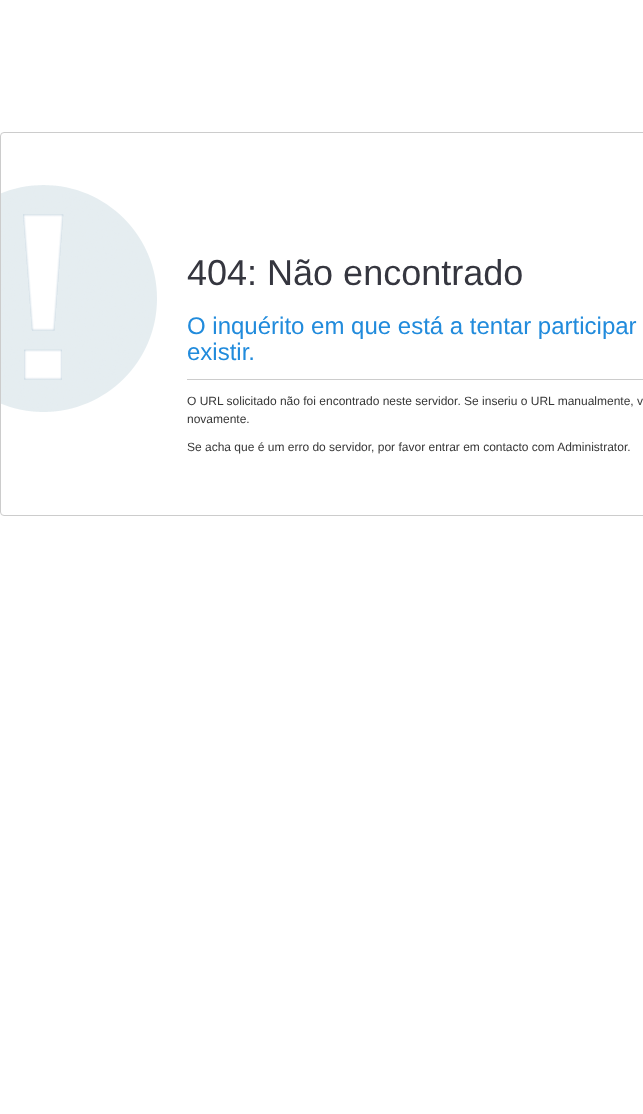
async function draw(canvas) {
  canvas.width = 643;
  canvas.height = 1114;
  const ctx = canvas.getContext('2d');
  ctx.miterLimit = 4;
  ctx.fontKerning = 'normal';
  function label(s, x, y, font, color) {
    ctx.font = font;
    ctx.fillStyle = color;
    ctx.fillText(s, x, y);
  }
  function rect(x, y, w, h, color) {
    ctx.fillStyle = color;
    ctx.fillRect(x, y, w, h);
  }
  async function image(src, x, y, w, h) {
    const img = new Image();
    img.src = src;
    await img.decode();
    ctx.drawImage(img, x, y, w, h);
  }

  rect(0, 0, 643, 1114, '#fff');
  await image('assets/img1.png', 1, 185, 156, 227);
  ctx.beginPath();
  ctx.roundRect(0.5, 132.5, 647, 383, 3.5);
  ctx.strokeStyle = '#ccc';
  ctx.stroke();
  label('404: Não encontrado', 187, 285, '36px Liberation Sans', '#35363f');
  rect(187, 379, 456, 1, '#ccc');
  label('O inquérito em que está a tentar participar', 187, 334, '24px Liberation Sans', '#218bdc');
  label('existir.', 187, 360, '24px Liberation Sans', '#218bdc');
  label('O URL solicitado não foi encontrado neste servidor. Se inseriu o URL manualmente, v', 187, 405, '12px Liberation Sans', '#373737');
  label('novamente.', 187, 423, '12px Liberation Sans', '#373737');
  label('Se acha que é um erro do servidor, por favor entrar em contacto com Administrator.', 187, 451, '12px Liberation Sans', '#373737');
}

draw(document.querySelector('canvas'));
